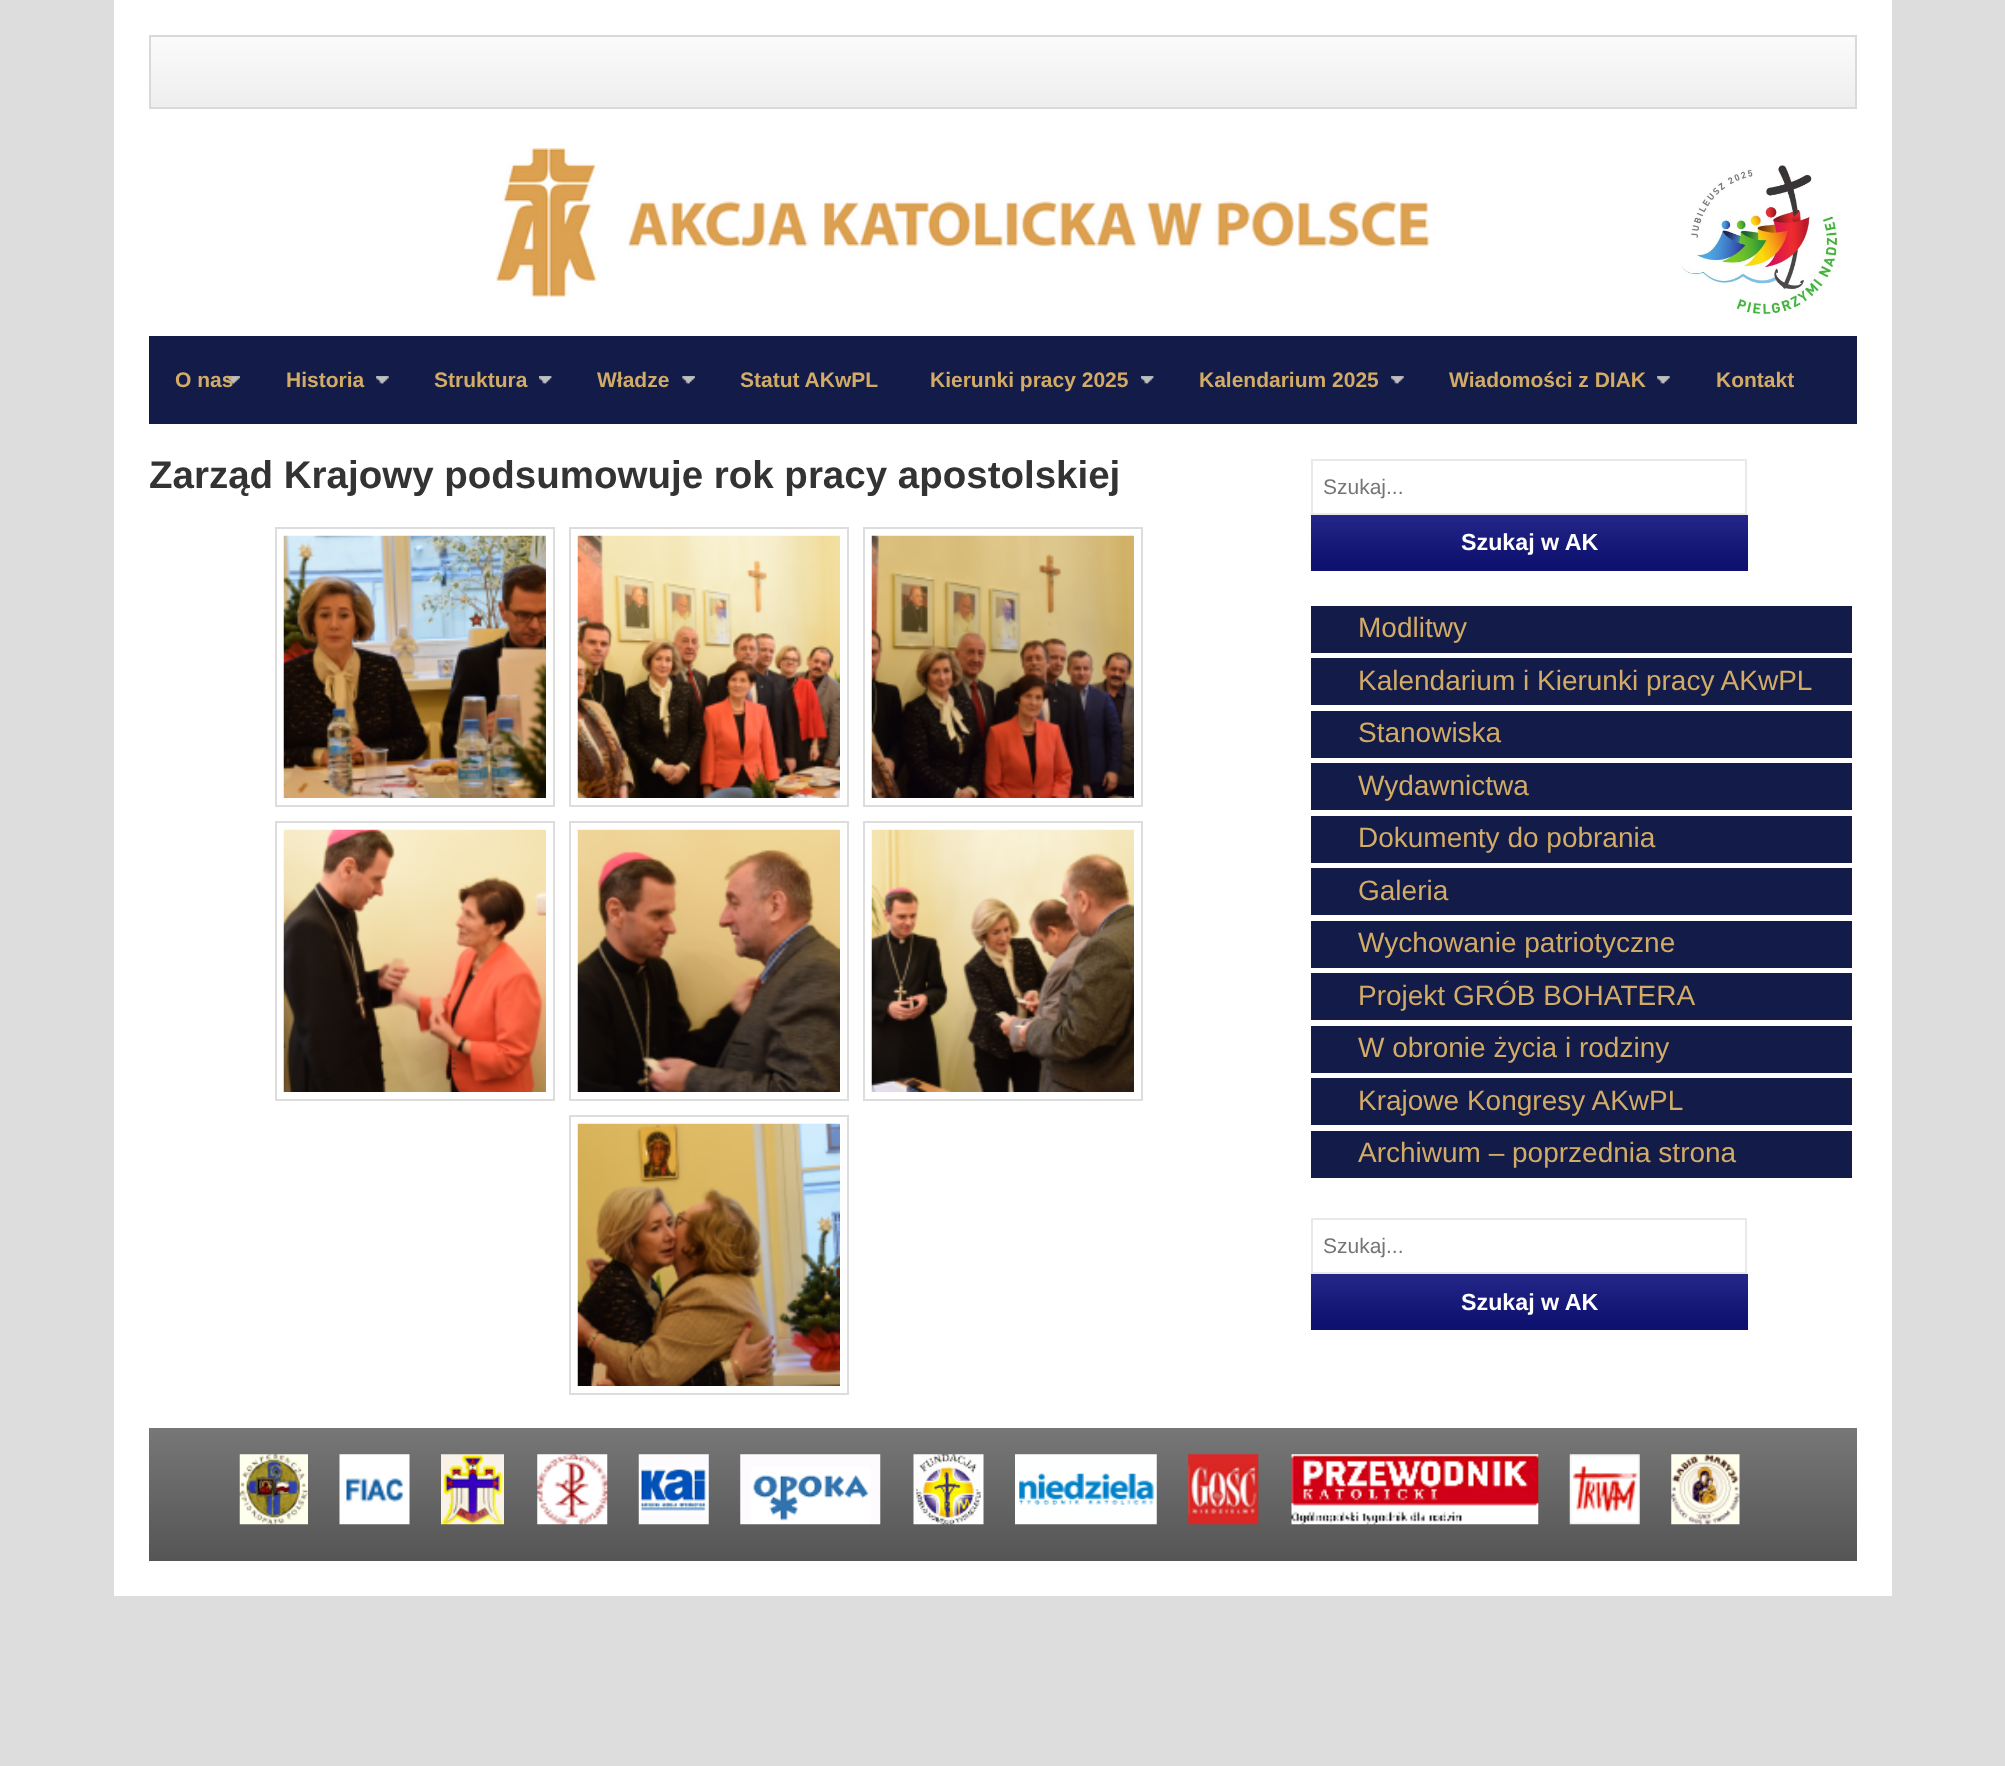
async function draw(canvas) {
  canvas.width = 2005;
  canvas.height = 1766;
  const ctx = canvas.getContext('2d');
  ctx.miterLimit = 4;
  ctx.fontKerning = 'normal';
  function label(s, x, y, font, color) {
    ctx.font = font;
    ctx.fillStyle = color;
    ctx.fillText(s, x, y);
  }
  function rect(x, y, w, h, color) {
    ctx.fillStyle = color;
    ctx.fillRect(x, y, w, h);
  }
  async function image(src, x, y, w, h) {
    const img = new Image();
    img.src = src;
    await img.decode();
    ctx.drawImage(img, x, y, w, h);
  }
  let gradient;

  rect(0, 0, 2005, 1766, '#ddd');
  rect(114, 0, 1778, 1596, '#fff');
  gradient = ctx.createLinearGradient(1003, 37, 1003, 107);
  gradient.addColorStop(0, '#fbfbfb');
  gradient.addColorStop(1, '#eee');
  ctx.fillStyle = gradient;
  ctx.fillRect(151, 37, 1704, 70);
  ctx.strokeStyle = '#d9d9d9';
  ctx.lineWidth = 2;
  ctx.strokeRect(150, 36, 1706, 72);
  await image('assets/img1.png', 496, 148, 934, 149);
  await image('assets/img2.png', 1681, 165, 157, 151);
  rect(149, 336, 1708, 88, '#131b48');
  await image('assets/img3.png', 227, 376, 13, 8);
  await image('assets/img4.png', 227, 376, 13, 8);
  label('O nas', 175, 387, 'bold 21px Liberation Sans', '#d2ab67');
  label('Historia', 286, 387, 'bold 21px Liberation Sans', '#d2ab67');
  await image('assets/img5.png', 376, 376, 13, 8);
  await image('assets/img6.png', 376, 376, 13, 8);
  label('Struktura', 434, 387, 'bold 21px Liberation Sans', '#d2ab67');
  await image('assets/img7.png', 539, 376, 13, 8);
  await image('assets/img8.png', 539, 376, 13, 8);
  label('Władze', 597, 387, 'bold 21px Liberation Sans', '#d2ab67');
  await image('assets/img3.png', 682, 376, 13, 8);
  await image('assets/img4.png', 682, 376, 13, 8);
  label('Statut AKwPL', 740, 387, 'bold 21px Liberation Sans', '#d2ab67');
  label('Kierunki pracy 2025', 930, 387, 'bold 21px Liberation Sans', '#d2ab67');
  await image('assets/img7.png', 1141, 376, 13, 8);
  await image('assets/img8.png', 1141, 376, 13, 8);
  label('Kalendarium 2025', 1199, 387, 'bold 21px Liberation Sans', '#d2ab67');
  await image('assets/img9.png', 1391, 376, 13, 8);
  await image('assets/img10.png', 1391, 376, 13, 8);
  label('Wiadomości z DIAK', 1449, 387, 'bold 21px Liberation Sans', '#d2ab67');
  await image('assets/img5.png', 1657, 376, 13, 8);
  await image('assets/img6.png', 1657, 376, 13, 8);
  label('Kontakt', 1716, 387, 'bold 21px Liberation Sans', '#d2ab67');
  label('Zarząd Krajowy podsumowuje rok pracy apostolskiej', 149, 488, 'bold 38.5px Liberation Sans', '#333');
  ctx.strokeStyle = '#ddd';
  ctx.strokeRect(276, 528, 278, 278);
  await image('assets/img11.png', 283, 535, 263, 263);
  ctx.strokeRect(570, 528, 278, 278);
  await image('assets/img12.png', 577, 535, 263, 263);
  ctx.strokeRect(864, 528, 278, 278);
  await image('assets/img13.png', 871, 535, 263, 263);
  ctx.strokeRect(276, 822, 278, 278);
  await image('assets/img14.png', 283, 829, 263, 263);
  ctx.strokeRect(570, 822, 278, 278);
  await image('assets/img15.png', 577, 829, 263, 263);
  ctx.strokeRect(864, 822, 278, 278);
  await image('assets/img16.png', 871, 829, 263, 263);
  ctx.strokeRect(570, 1116, 278, 278);
  await image('assets/img17.png', 577, 1123, 263, 263);
  ctx.strokeStyle = '#e9e9e9';
  ctx.strokeRect(1312, 460, 434, 54);
  label('Szukaj...', 1323, 494, '21px Liberation Sans', '#757575');
  rect(1311, 515, 437, 56, '#10127b');
  await image('assets/img18.png', 1310, 515, 439, 56);
  label('Szukaj w AK', 1461, 550, 'bold 23.25px Liberation Sans', '#fff');
  rect(1311, 606, 541, 47, '#131b48');
  label('Modlitwy', 1358, 637, '28px Liberation Sans', '#d2ab67');
  rect(1311, 658, 541, 47, '#131b48');
  label('Kalendarium i Kierunki pracy AKwPL', 1358, 690, '28px Liberation Sans', '#d2ab67');
  rect(1311, 711, 541, 47, '#131b48');
  label('Stanowiska', 1358, 742, '28px Liberation Sans', '#d2ab67');
  rect(1311, 763, 541, 47, '#131b48');
  label('Wydawnictwa', 1358, 795, '28px Liberation Sans', '#d2ab67');
  rect(1311, 816, 541, 47, '#131b48');
  label('Dokumenty do pobrania', 1358, 847, '28px Liberation Sans', '#d2ab67');
  rect(1311, 868, 541, 47, '#131b48');
  label('Galeria', 1358, 900, '28px Liberation Sans', '#d2ab67');
  rect(1311, 921, 541, 47, '#131b48');
  label('Wychowanie patriotyczne', 1358, 952, '28px Liberation Sans', '#d2ab67');
  rect(1311, 973, 541, 47, '#131b48');
  label('Projekt GRÓB BOHATERA', 1358, 1005, '28px Liberation Sans', '#d2ab67');
  rect(1311, 1026, 541, 47, '#131b48');
  label('W obronie życia i rodziny', 1358, 1057, '28px Liberation Sans', '#d2ab67');
  rect(1311, 1078, 541, 47, '#131b48');
  label('Krajowe Kongresy AKwPL', 1358, 1110, '28px Liberation Sans', '#d2ab67');
  rect(1311, 1131, 541, 47, '#131b48');
  label('Archiwum – poprzednia strona', 1358, 1162, '28px Liberation Sans', '#d2ab67');
  ctx.strokeRect(1312, 1219, 434, 54);
  label('Szukaj...', 1323, 1253, '21px Liberation Sans', '#757575');
  rect(1311, 1274, 437, 56, '#10127b');
  await image('assets/img19.png', 1310, 1274, 439, 56);
  label('Szukaj w AK', 1461, 1310, 'bold 23.25px Liberation Sans', '#fff');
  gradient = ctx.createLinearGradient(1003, 1428, 1003, 1561);
  gradient.addColorStop(0, '#777');
  gradient.addColorStop(1, '#555');
  ctx.fillStyle = gradient;
  ctx.fillRect(149, 1428, 1708, 133);
  await image('assets/img20.png', 239, 1454, 69, 71);
  await image('assets/img21.png', 339, 1454, 71, 71);
  await image('assets/img22.png', 441, 1454, 63, 71);
  await image('assets/img23.png', 537, 1454, 71, 71);
  await image('assets/img24.png', 638, 1454, 71, 71);
  await image('assets/img25.png', 740, 1454, 141, 71);
  await image('assets/img26.png', 913, 1454, 71, 71);
  await image('assets/img27.png', 1015, 1454, 142, 71);
  await image('assets/img28.png', 1188, 1454, 71, 71);
  await image('assets/img29.png', 1291, 1454, 248, 71);
  await image('assets/img30.png', 1569, 1454, 71, 71);
  await image('assets/img31.png', 1671, 1454, 69, 71);
}

draw(document.querySelector('canvas'));
